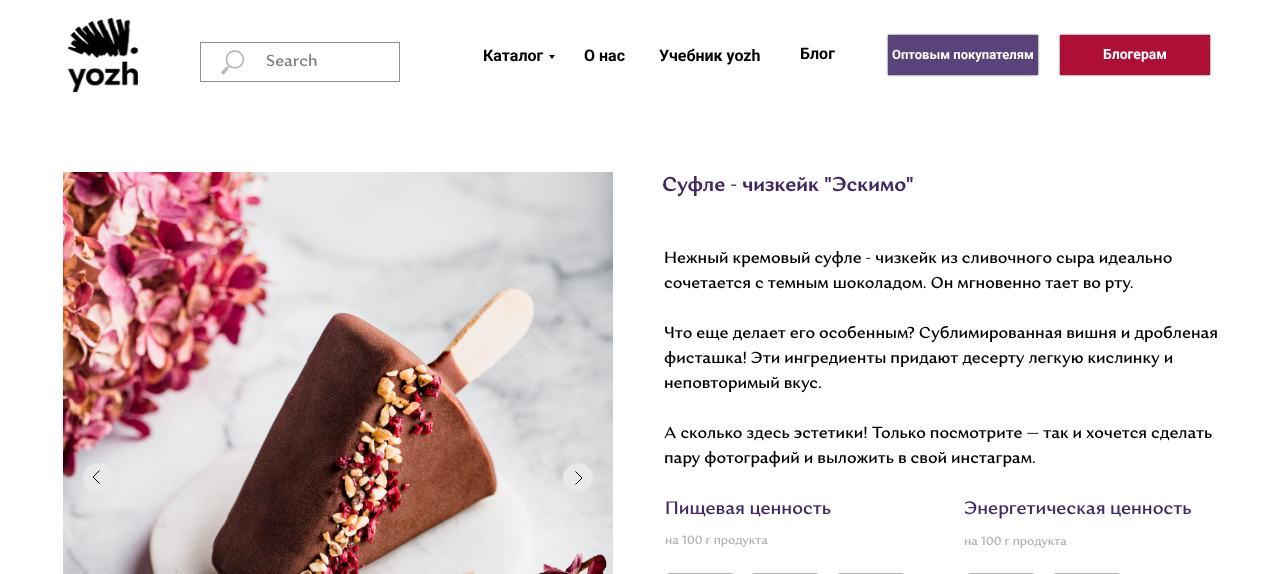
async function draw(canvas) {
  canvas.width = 1285;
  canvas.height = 574;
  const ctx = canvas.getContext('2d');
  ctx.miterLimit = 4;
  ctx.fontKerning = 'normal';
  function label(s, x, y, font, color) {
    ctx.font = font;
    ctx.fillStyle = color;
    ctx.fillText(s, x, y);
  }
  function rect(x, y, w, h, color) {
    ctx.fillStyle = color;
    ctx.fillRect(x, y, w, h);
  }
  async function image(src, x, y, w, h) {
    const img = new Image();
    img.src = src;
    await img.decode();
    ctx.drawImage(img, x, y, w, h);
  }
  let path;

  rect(0, 0, 1285, 574, '#fff');
  await image('assets/img1.png', 67, 18, 71, 74);
  ctx.strokeStyle = '#938f8f';
  ctx.strokeRect(200.5, 42.5, 199, 39);
  await image('assets/img2.png', 221, 50, 24, 25);
  label('Search', 266, 66, '500 16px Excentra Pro', '#808080');
  label('Каталог', 483, 61, 'bold 16px Roboto', '#000');
  path = new Path2D('M549 55H555L552 59Z');
  ctx.fill(path);
  label('О нас', 584, 61, 'bold 16px Roboto', '#000');
  label('Учебник yozh', 659, 61, 'bold 16px Roboto', '#000');
  label('Блог', 800, 59, 'bold 16px Roboto', '#000');
  ctx.fillStyle = '#000000b3';
  ctx.filter = 'blur(1px)';
  ctx.beginPath();
  ctx.rect(888, 35, 150, 40);
  ctx.fill();
  ctx.filter = 'none';
  rect(888, 35, 150, 40, '#5a4378');
  label('Оптовым покупателям', 892, 59, 'bold 13px Roboto', '#fff');
  ctx.fillStyle = '#000000b3';
  ctx.filter = 'blur(1px)';
  ctx.beginPath();
  ctx.rect(1060, 35, 150, 40);
  ctx.fill();
  ctx.filter = 'none';
  rect(1060, 35, 150, 40, '#ae0f36');
  label('Блогерам', 1103, 59, 'bold 14px Roboto', '#fff');
  await image('assets/img3.png', 63, 172, 550, 402);
  ctx.fillStyle = '#e8e8e8';
  ctx.beginPath();
  ctx.arc(98, 478, 15, 0, 2 * Math.PI);
  ctx.fill();
  path = new Path2D('M99.5 470.5L93 477L99.5 483.5');
  ctx.strokeStyle = '#000';
  ctx.stroke(path);
  ctx.beginPath();
  ctx.arc(578, 478, 15, 0, 2 * Math.PI);
  ctx.fill();
  path = new Path2D('M575.5 484.5L582 478L575.5 471.5');
  ctx.stroke(path);
  label('Суфле - чизкейк "Эскимо"', 662, 191, '600 20px Excentra Pro', '#422963');
  label('Нежный кремовый суфле - чизкейк из сливочного сыра идеально', 664, 263, '500 16px Excentra Pro', '#000');
  label('сочетается с темным шоколадом. Он мгновенно тает во рту.', 664, 288, '500 16px Excentra Pro', '#000');
  label('Что еще делает его особенным? Сублимированная вишня и дробленая', 664, 338, '500 16px Excentra Pro', '#000');
  label('фисташка! Эти ингредиенты придают десерту легкую кислинку и', 664, 363, '500 16px Excentra Pro', '#000');
  label('неповторимый вкус.', 664, 388, '500 16px Excentra Pro', '#000');
  label('А сколько здесь эстетики! Только посмотрите — так и хочется сделать', 664, 438, '500 16px Excentra Pro', '#000');
  label('пару фотографий и выложить в свой инстаграм.', 664, 463, '500 16px Excentra Pro', '#000');
  label('Пищевая ценность', 665, 514, '500 18px Excentra Pro', '#422963');
  label('Энергетическая ценность', 964, 514, '500 18px Excentra Pro', '#422963');
  label('на 100 г продукта', 665, 544, '500 12px Excentra Pro', '#b4b0b0');
  label('на 100 г продукта', 964, 545, '500 12px Excentra Pro', '#b4b0b0');
  ctx.beginPath();
  ctx.roundRect(664.5, 573.5, 72, 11, 9.5);
  ctx.strokeStyle = '#b4b0b0';
  ctx.stroke();
  ctx.beginPath();
  ctx.roundRect(749.5, 573.5, 72, 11, 9.5);
  ctx.stroke();
  ctx.beginPath();
  ctx.roundRect(834.5, 573.5, 72, 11, 9.5);
  ctx.stroke();
  ctx.beginPath();
  ctx.roundRect(965.5, 573.5, 72, 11, 9.5);
  ctx.stroke();
  ctx.beginPath();
  ctx.roundRect(1050.5, 573.5, 72, 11, 9.5);
  ctx.stroke();
}

draw(document.querySelector('canvas'));
